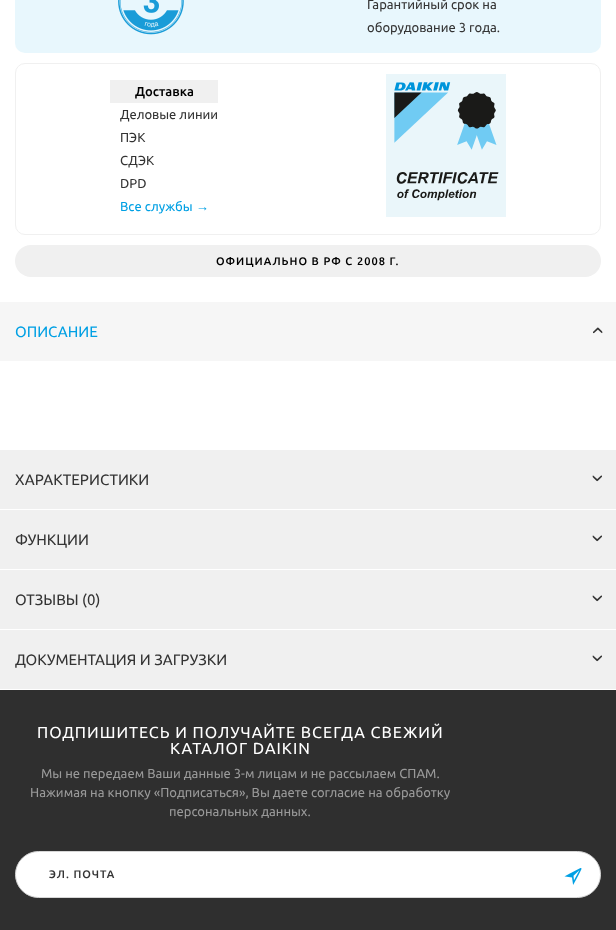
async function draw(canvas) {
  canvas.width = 616;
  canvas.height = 930;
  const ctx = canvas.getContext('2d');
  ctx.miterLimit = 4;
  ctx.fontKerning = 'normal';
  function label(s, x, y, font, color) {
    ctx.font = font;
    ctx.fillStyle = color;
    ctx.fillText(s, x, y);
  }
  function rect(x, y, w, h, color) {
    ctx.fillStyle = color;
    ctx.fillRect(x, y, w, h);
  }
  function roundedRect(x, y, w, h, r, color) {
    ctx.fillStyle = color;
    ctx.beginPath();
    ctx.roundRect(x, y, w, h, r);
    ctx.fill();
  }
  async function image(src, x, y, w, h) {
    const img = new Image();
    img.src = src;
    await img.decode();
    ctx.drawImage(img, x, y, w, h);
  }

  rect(0, 0, 616, 930, '#fff');
  roundedRect(15, -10, 586, 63, 10, '#e8f7fd');
  await image('assets/img1.png', 118, 0, 66, 35);
  label('Гарантийный срок на', 367, 9, '13px Ubuntu', '#343434');
  label('оборудование 3 года.', 367, 32, '13px Ubuntu', '#343434');
  ctx.beginPath();
  ctx.roundRect(15.5, 63.5, 585, 171, 9.5);
  ctx.strokeStyle = '#f0f0f0';
  ctx.stroke();
  rect(110, 80, 108, 23, '#f0f0f0');
  label('Доставка', 135, 96, '500 13px Ubuntu', '#000');
  label('Деловые линии', 120, 119, '13px Ubuntu', '#343434');
  label('ПЭК', 120, 142, '13px Ubuntu', '#343434');
  label('СДЭК', 120, 165, '13px Ubuntu', '#343434');
  label('DPD', 120, 188, '13px Ubuntu', '#343434');
  label('Все службы', 120, 211, '13px Ubuntu', '#00a0e4');
  label('→', 196, 211, '13px Liberation Sans', '#00a0e4');
  await image('assets/img2.png', 386, 74, 120, 143);
  roundedRect(15, 245, 586, 32, 16, '#f0f0f0');
  ctx.letterSpacing = '1px';
  label('ОФИЦИАЛЬНО В РФ С 2008 Г.', 216, 265, '500 11px Ubuntu', '#000');
  rect(0, 302, 616, 59, '#f6f6f6');
  ctx.letterSpacing = '0px';
  label('ОПИСАНИЕ', 15, 337, '15px Ubuntu', '#00a0e4');
  await image('assets/img3.png', 593, 327, 10, 7);
  rect(0, 450, 616, 59, '#f0f0f0');
  label('ХАРАКТЕРИСТИКИ', 15, 485, '15px Ubuntu', '#343434');
  await image('assets/img4.png', 592, 475, 10, 7);
  rect(0, 510, 616, 59, '#f0f0f0');
  label('ФУНКЦИИ', 15, 545, '15px Ubuntu', '#343434');
  await image('assets/img4.png', 592, 535, 10, 7);
  rect(0, 570, 616, 59, '#f0f0f0');
  label('ОТЗЫВЫ (0)', 15, 605, '15px Ubuntu', '#343434');
  await image('assets/img4.png', 592, 595, 10, 7);
  rect(0, 630, 616, 59, '#f0f0f0');
  label('ДОКУМЕНТАЦИЯ И ЗАГРУЗКИ', 15, 665, '15px Ubuntu', '#343434');
  await image('assets/img4.png', 592, 655, 10, 7);
  rect(0, 690, 616, 240, '#2f2f2f');
  ctx.letterSpacing = '1px';
  label('ПОДПИШИТЕСЬ И ПОЛУЧАЙТЕ ВСЕГДА СВЕЖИЙ', 37, 738, '16px Ubuntu', '#fff');
  label('КАТАЛОГ DAIKIN', 170, 754, '16px Ubuntu', '#fff');
  ctx.letterSpacing = '0px';
  label('Мы не передаем Ваши данные 3-м лицам и не рассылаем СПАМ.', 41, 778, '13px Ubuntu', '#999');
  label('Нажимая на кнопку «Подписаться», Вы даете согласие на обработку', 30, 797, '13px Ubuntu', '#999');
  label('персональных данных.', 169, 816, '13px Ubuntu', '#999');
  ctx.fillStyle = '#fff';
  ctx.beginPath();
  ctx.roundRect(15.5, 851.5, 585, 46, 23);
  ctx.fill();
  ctx.strokeStyle = '#d6d6d6';
  ctx.stroke();
  ctx.letterSpacing = '1px';
  label('ЭЛ. ПОЧТА', 49, 878, '500 11px Ubuntu', '#343434');
  await image('assets/img5.png', 564, 868, 18, 17);
}

draw(document.querySelector('canvas'));
